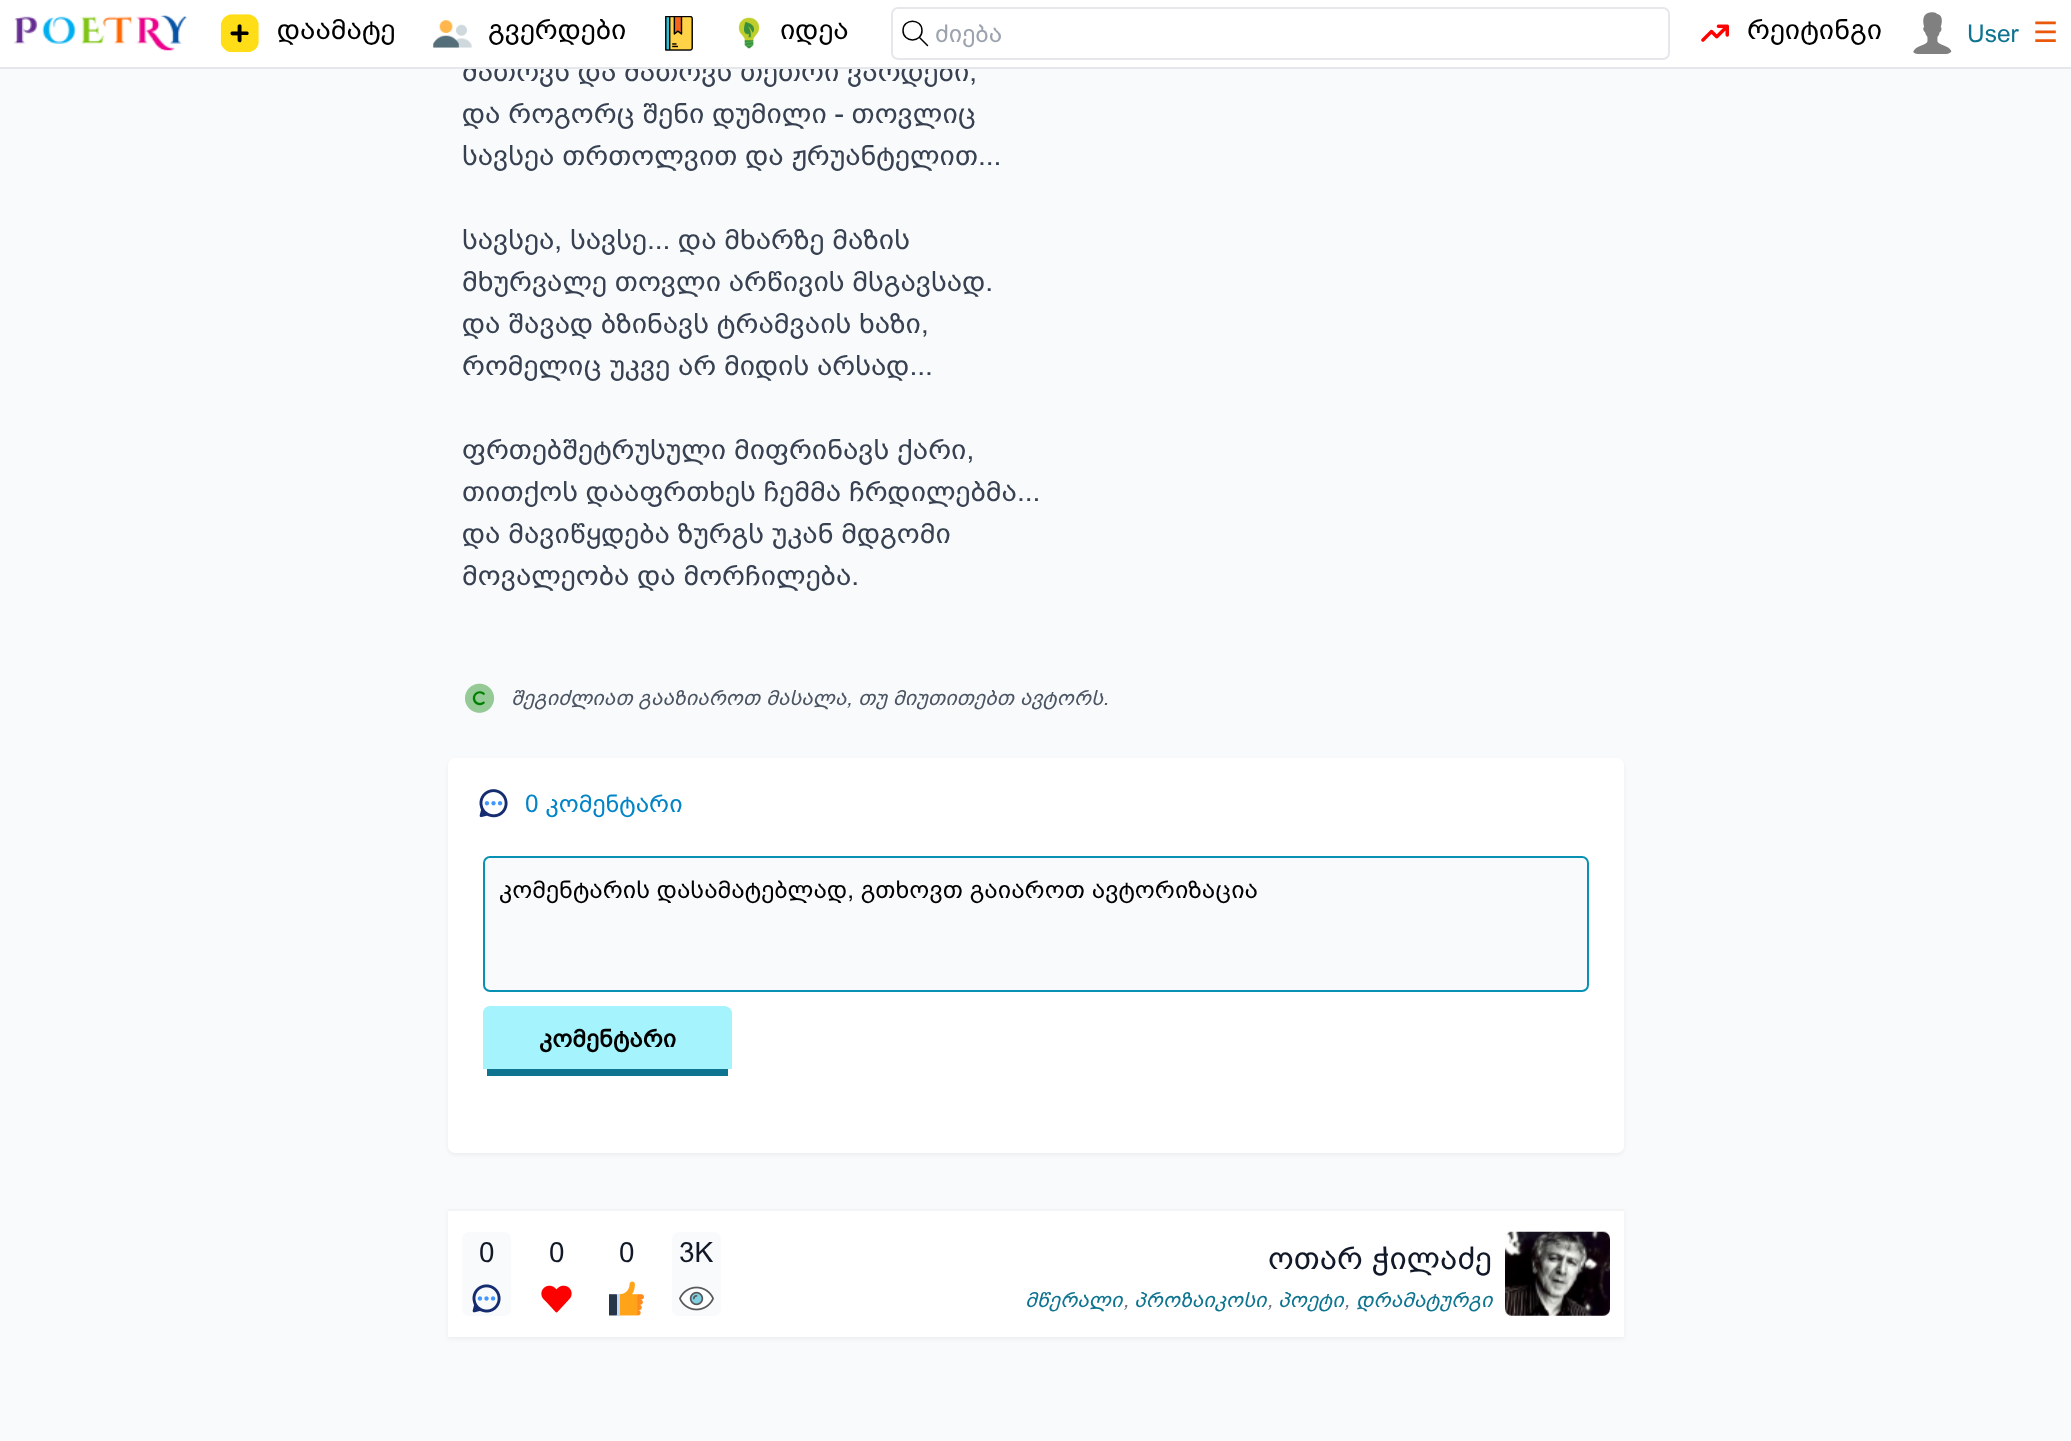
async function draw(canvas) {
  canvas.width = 2071;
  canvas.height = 1441;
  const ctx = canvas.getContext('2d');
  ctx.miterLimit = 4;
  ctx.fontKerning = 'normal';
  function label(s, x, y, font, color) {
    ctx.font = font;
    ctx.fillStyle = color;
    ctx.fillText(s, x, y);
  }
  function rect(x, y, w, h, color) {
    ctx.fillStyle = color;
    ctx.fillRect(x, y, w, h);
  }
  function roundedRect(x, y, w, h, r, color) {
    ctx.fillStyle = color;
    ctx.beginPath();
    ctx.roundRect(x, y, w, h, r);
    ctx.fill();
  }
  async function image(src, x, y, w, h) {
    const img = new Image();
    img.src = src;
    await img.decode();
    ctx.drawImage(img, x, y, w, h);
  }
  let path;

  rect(0, 0, 2071, 1441, '#f9fafb');
  label('მათოვს და მათოვს თეთრი ვარდები,', 462, 81, '28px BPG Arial', '#374151');
  rect(0, 0, 2071, 67, '#fff');
  rect(0, 67, 2071, 2, '#e5e7eb');
  await image('assets/img1.png', 14, 15, 173, 36);
  await image('assets/img2.png', 220, 14, 39, 39);
  label('დაამატე', 277, 39, '28px BPG Arial', '#000');
  await image('assets/img3.png', 433, 20, 39, 28);
  label('გვერდები', 488, 39, '28px BPG Arial', '#000');
  await image('assets/img4.png', 665, 16, 28, 35);
  await image('assets/img5.png', 738, 17, 22, 32);
  label('იდეა', 780, 39, '28px BPG Arial', '#000');
  ctx.beginPath();
  ctx.roundRect(892, 8, 777, 51, 6);
  ctx.strokeStyle = '#e5e7eb';
  ctx.lineWidth = 2;
  ctx.stroke();
  path = new Path2D('M922 30.5C922 43 903 43 903 30.5C903 18 922 18 922 30.5ZM919.5 37.5L927.5 45.5');
  ctx.strokeStyle = '#000';
  ctx.lineWidth = 1.5;
  ctx.lineCap = 'round';
  ctx.lineJoin = 'round';
  ctx.stroke(path);
  label('ძიება', 935, 42, '24.5px BPG Arial', '#9ca3af');
  await image('assets/img6.png', 1701, 24, 28, 18);
  label('რეიტინგი', 1747, 39, '28px BPG Arial', '#000');
  await image('assets/img7.png', 1913, 12, 39, 42);
  label('User', 1967, 42, '24.5px BPG Arial', '#0e7490');
  label('☰', 2033, 42, '28px DejaVu Sans', '#ea580c');
  label('და როგორც შენი დუმილი - თოვლიც', 462, 123, '28px BPG Arial', '#374151');
  label('სავსეა თრთოლვით და ჟრუანტელით...', 462, 165, '28px BPG Arial', '#374151');
  label('სავსეა, სავსე... და მხარზე მაზის', 462, 249, '28px BPG Arial', '#374151');
  label('მხურვალე თოვლი არწივის მსგავსად.', 462, 291, '28px BPG Arial', '#374151');
  label('და შავად ბზინავს ტრამვაის ხაზი,', 462, 333, '28px BPG Arial', '#374151');
  label('რომელიც უკვე არ მიდის არსად...', 462, 375, '28px BPG Arial', '#374151');
  label('ფრთებშეტრუსული მიფრინავს ქარი,', 462, 459, '28px BPG Arial', '#374151');
  label('თითქოს დააფრთხეს ჩემმა ჩრდილებმა...', 462, 501, '28px BPG Arial', '#374151');
  label('და მავიწყდება ზურგს უკან მდგომი', 462, 543, '28px BPG Arial', '#374151');
  label('მოვალეობა და მორჩილება.', 462, 585, '28px BPG Arial', '#374151');
  await image('assets/img8.png', 465, 683, 30, 30);
  label('შეგიძლიათ გააზიაროთ მასალა, თუ მიუთითებთ ავტორს.', 511, 705, 'italic 21px BPG Arial', '#4b5563');
  ctx.fillStyle = '#0000000d';
  ctx.filter = 'blur(2px)';
  ctx.beginPath();
  ctx.roundRect(448, 760, 1176, 395, 7);
  ctx.fill();
  ctx.filter = 'none';
  roundedRect(448, 758, 1176, 395, 7, '#fff');
  await image('assets/img9.png', 479, 789, 29, 29);
  label('0 კომენტარი', 525, 812, '24.5px BPG Arial', '#0284c7');
  ctx.fillStyle = '#f9fafb';
  ctx.beginPath();
  ctx.roundRect(484, 857, 1104, 134, 6);
  ctx.fill();
  ctx.strokeStyle = '#0891b2';
  ctx.lineWidth = 2;
  ctx.lineJoin = 'miter';
  ctx.stroke();
  label('კომენტარის დასამატებლად, გთხოვთ გაიაროთ ავტორიზაცია', 499, 898, '24.5px BPG Arial', '#000');
  ctx.fillStyle = '#a5f3fc';
  path = new Path2D('M490 1006H724C728 1006 732 1009 732 1013V1069H483V1013C483 1009 486 1006 490 1006Z');
  ctx.fill(path);
  rect(487, 1069, 241, 7, '#0e7490');
  label('კომენტარი', 539, 1047, 'bold 24.5px BPG Arial', '#000');
  ctx.fillStyle = '#0000000d';
  ctx.filter = 'blur(2px)';
  ctx.beginPath();
  ctx.rect(448, 1211, 1176, 128);
  ctx.fill();
  ctx.filter = 'none';
  rect(448, 1211, 1176, 126, '#fff');
  rect(448, 1209, 1176, 2, '#f3f4f6');
  roundedRect(462, 1232, 49, 84, 7, '#f9fafb');
  label('0', 479, 1262, '28px BPG Arial', '#111827');
  await image('assets/img10.png', 472, 1284, 29, 29);
  label('0', 549, 1262, '28px BPG Arial', '#111827');
  await image('assets/img11.png', 541, 1285, 31, 28);
  label('0', 619, 1262, '28px BPG Arial', '#111827');
  await image('assets/img12.png', 609, 1281, 35, 35);
  roundedRect(672, 1232, 49, 84, 7, '#f9fafb');
  label('3K', 679, 1262, '28px BPG Arial', '#111827');
  await image('assets/img13.png', 679, 1286, 35, 25);
  label('ოთარ ჭილაძე', 1268, 1269, '31.5px BPG Arial', '#111827');
  label('მწერალი', 1025, 1307, 'italic 21px BPG Arial', '#0e7490');
  label(',', 1123, 1307, 'italic 21px BPG Arial', '#6b7280');
  label('პროზაიკოსი', 1134, 1307, 'italic 21px BPG Arial', '#0e7490');
  label(',', 1267, 1307, 'italic 21px BPG Arial', '#6b7280');
  label('პოეტი', 1278, 1307, 'italic 21px BPG Arial', '#0e7490');
  label(',', 1344, 1307, 'italic 21px BPG Arial', '#6b7280');
  label('დრამატურგი', 1356, 1307, 'italic 21px BPG Arial', '#0e7490');
  await image('assets/img14.png', 1505, 1231, 105, 85);
}

draw(document.querySelector('canvas'));
